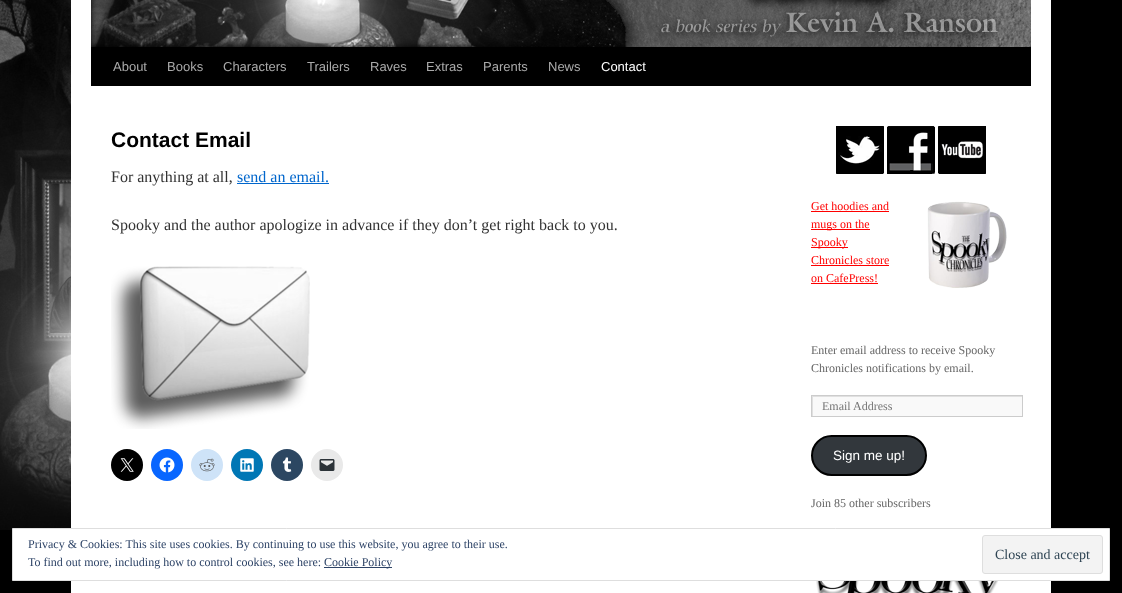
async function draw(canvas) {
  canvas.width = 1122;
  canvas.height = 593;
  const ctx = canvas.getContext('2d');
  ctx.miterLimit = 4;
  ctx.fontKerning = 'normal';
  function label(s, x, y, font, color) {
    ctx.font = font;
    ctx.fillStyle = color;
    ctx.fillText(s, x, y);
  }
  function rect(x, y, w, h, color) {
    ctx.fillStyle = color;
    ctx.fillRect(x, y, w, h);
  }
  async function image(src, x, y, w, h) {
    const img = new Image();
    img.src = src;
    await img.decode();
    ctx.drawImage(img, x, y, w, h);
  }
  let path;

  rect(0, 0, 1122, 593, '#000');
  await image('assets/img1.png', 0, 0, 71, 530);
  rect(71, 0, 980, 593, '#fff');
  rect(91, 47, 940, 39, '#000');
  await image('assets/img2.png', 91, 0, 940, 47);
  label('About', 113, 71, '13px Liberation Sans', '#aaa');
  label('Books', 167, 71, '13px Liberation Sans', '#aaa');
  label('Characters', 223, 71, '13px Liberation Sans', '#aaa');
  label('Trailers', 307, 71, '13px Liberation Sans', '#aaa');
  label('Raves', 370, 71, '13px Liberation Sans', '#aaa');
  label('Extras', 426, 71, '13px Liberation Sans', '#aaa');
  label('Parents', 483, 71, '13px Liberation Sans', '#aaa');
  label('News', 548, 71, '13px Liberation Sans', '#aaa');
  label('Contact', 601, 71, '13px Liberation Sans', '#fff');
  label('Contact Email', 111, 147, 'bold 21px Liberation Sans', '#000');
  label('For anything at all,', 111, 182, '16px Liberation Serif', '#333');
  label('send an email.', 237, 182, '16px Liberation Serif', '#06c');
  rect(237, 183, 92, 1, '#06c');
  label('Spooky and the author apologize in advance if they don’t get right back to you.', 111, 230, '16px Liberation Serif', '#333');
  await image('assets/img3.png', 111, 266, 199, 163);
  ctx.fillStyle = '#000';
  ctx.beginPath();
  ctx.arc(127, 465, 16, 0, 2 * Math.PI);
  ctx.fill();
  await image('assets/img4.png', 120, 458, 14, 14);
  ctx.fillStyle = '#0866ff';
  ctx.beginPath();
  ctx.arc(167, 465, 16, 0, 2 * Math.PI);
  ctx.fill();
  await image('assets/img5.png', 159, 457, 16, 16);
  ctx.fillStyle = '#cee3f8';
  ctx.beginPath();
  ctx.arc(207, 465, 16, 0, 2 * Math.PI);
  ctx.fill();
  await image('assets/img6.png', 199, 458, 16, 14);
  ctx.fillStyle = '#0077b5';
  ctx.beginPath();
  ctx.arc(247, 465, 16, 0, 2 * Math.PI);
  ctx.fill();
  await image('assets/img7.png', 240, 458, 14, 14);
  ctx.fillStyle = '#2c4762';
  ctx.beginPath();
  ctx.arc(287, 465, 16, 0, 2 * Math.PI);
  ctx.fill();
  await image('assets/img8.png', 282, 457, 10, 15);
  ctx.fillStyle = '#e9e9e9';
  ctx.beginPath();
  ctx.arc(327, 465, 16, 0, 2 * Math.PI);
  ctx.fill();
  await image('assets/img9.png', 319, 459, 16, 12);
  await image('assets/img10.png', 836, 126, 48, 48);
  await image('assets/img11.png', 887, 126, 48, 48);
  await image('assets/img12.png', 938, 126, 48, 48);
  label('Get hoodies and', 811, 210, '12px Liberation Serif', '#f00');
  rect(811, 211, 78, 1, '#f00');
  await image('assets/img13.png', 927, 201, 80, 87);
  rect(811, 229, 59, 1, '#f00');
  label('mugs on the', 811, 228, '12px Liberation Serif', '#f00');
  rect(811, 247, 37, 1, '#f00');
  label('Spooky', 811, 246, '12px Liberation Serif', '#f00');
  label('Chronicles store', 811, 264, '12px Liberation Serif', '#f00');
  rect(811, 265, 78, 1, '#f00');
  label('on CafePress!', 811, 282, '12px Liberation Serif', '#f00');
  rect(811, 283, 67, 1, '#f00');
  label('Enter email address to receive Spooky', 811, 354, '12px Liberation Serif', '#666');
  label('Chronicles notifications by email.', 811, 372, '12px Liberation Serif', '#666');
  rect(813, 397, 209, 19, '#f9f9f9');
  ctx.save();
  ctx.beginPath();
  ctx.rect(812, 396, 210, 20);
  ctx.clip();
  ctx.fillStyle = '#e0e0e0';
  path = new Path2D('M713 297H1121V515H713ZM813 397H1023V417H813Z');
  ctx.fill(path, 'evenodd');
  ctx.restore();
  ctx.strokeStyle = '#ccc';
  ctx.strokeRect(811.5, 395.5, 211, 21);
  label('Email Address', 822, 410, '12px Liberation Serif', '#757575');
  ctx.fillStyle = '#32373c';
  ctx.beginPath();
  ctx.roundRect(812, 436, 114, 39, 19.5);
  ctx.fill();
  ctx.strokeStyle = '#000';
  ctx.lineWidth = 2;
  ctx.stroke();
  label('Sign me up!', 833, 460, '13.5px Liberation Sans', '#fff');
  label('Join 85 other subscribers', 811, 507, '12px Liberation Serif', '#666');
  await image('assets/img14.png', 816, 581, 182, 12);
  ctx.fillStyle = '#fff';
  ctx.beginPath();
  ctx.rect(12.5, 528.5, 1097, 52);
  ctx.fill();
  ctx.strokeStyle = '#dedede';
  ctx.lineWidth = 1;
  ctx.stroke();
  label('Privacy & Cookies: This site uses cookies. By continuing to use this website, you agree to their use.', 28, 548, '12px Liberation Serif', '#2e4467');
  label('To find out more, including how to control cookies, see here:', 28, 566, '12px Liberation Serif', '#2e4467');
  rect(324, 567, 68, 1, '#2e4467');
  label('Cookie Policy', 324, 566, '12px Liberation Serif', '#2e4467');
  ctx.fillStyle = '#f3f3f3';
  ctx.beginPath();
  ctx.roundRect(982.5, 535.5, 120, 38, 2.5);
  ctx.fill();
  ctx.stroke();
  label('Close and accept', 995, 559, '14px Liberation Serif', '#2e4453');
}

draw(document.querySelector('canvas'));
